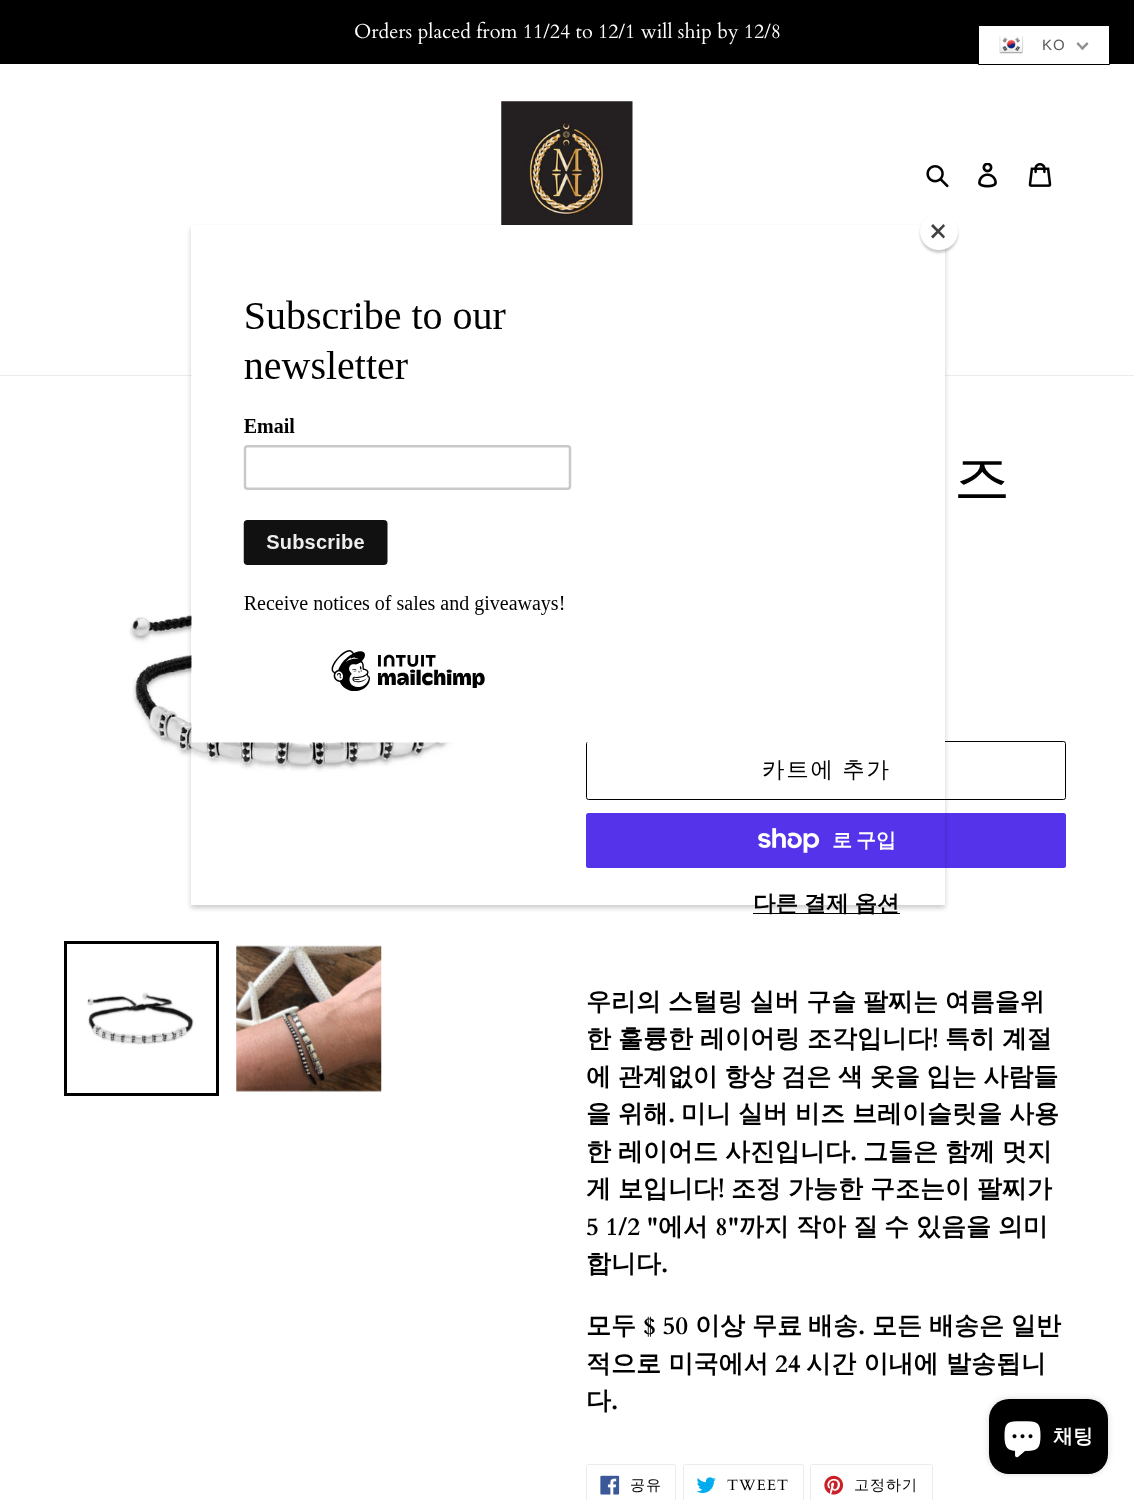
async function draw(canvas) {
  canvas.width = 1134;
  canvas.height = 1500;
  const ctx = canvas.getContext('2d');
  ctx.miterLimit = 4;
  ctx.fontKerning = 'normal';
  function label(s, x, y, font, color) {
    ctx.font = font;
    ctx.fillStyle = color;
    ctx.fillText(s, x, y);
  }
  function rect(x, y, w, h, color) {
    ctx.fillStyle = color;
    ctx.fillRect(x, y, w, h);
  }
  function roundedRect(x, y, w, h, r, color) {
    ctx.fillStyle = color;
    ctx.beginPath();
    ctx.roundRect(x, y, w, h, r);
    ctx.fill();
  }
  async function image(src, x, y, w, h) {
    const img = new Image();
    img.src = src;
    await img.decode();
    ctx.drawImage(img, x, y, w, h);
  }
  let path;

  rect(0, 0, 1134, 1500, '#fff');
  rect(0, 0, 1134, 64, '#000');
  label('Orders placed from 11/24 to 12/1 will ship by 12/8', 354, 38, '20px Cardo', '#fff');
  await image('assets/img1.png', 501, 101, 132, 124);
  await image('assets/img2.png', 926, 165, 23, 23);
  await image('assets/img3.png', 978, 163, 19, 25);
  await image('assets/img4.png', 1028, 163, 24, 24);
  rect(0, 375, 1134, 1, '#ebebeb');
  ctx.fillStyle = '#fff';
  ctx.beginPath();
  ctx.rect(978.5, 25.5, 131, 39);
  ctx.fill();
  ctx.strokeStyle = '#000';
  ctx.stroke();
  await image('assets/img5.png', 999, 36, 24, 18);
  ctx.letterSpacing = '1px';
  label('KO', 1042, 50, '15px Liberation Sans', '#5c5c5c');
  ctx.fillStyle = '#909090';
  path = new Path2D('M1087 42L1088.5 44L1082.5 50L1080.5 48.5Z');
  ctx.fill(path);
  path = new Path2D('M1078 42L1084 48.5L1082.5 50L1076.5 44Z');
  ctx.fill(path);
  await image('assets/img7.png', 129, 598, 352, 174);
  ctx.beginPath();
  ctx.roundRect(586.5, 741.5, 479, 58, 2);
  ctx.stroke();
  roundedRect(586, 813, 480, 55, 2.5, '#5433eb');
  await image('assets/img10.png', 758, 828, 62, 25);
  rect(753, 913, 147, 1, '#000');
  ctx.save();
  path = new Path2D('M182 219H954V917H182ZM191 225H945V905H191Z');
  ctx.clip(path, 'evenodd');
  ctx.fillStyle = '#00000033';
  ctx.filter = 'blur(2.5px)';
  ctx.beginPath();
  ctx.rect(191, 228, 754, 680);
  ctx.fill();
  ctx.filter = 'none';
  ctx.restore();
  await image('assets/img6.png', 191, 225, 754, 518);
  ctx.fillStyle = '#00000033';
  ctx.filter = 'blur(1px)';
  ctx.beginPath();
  ctx.roundRect(920, 215, 38, 38, 19);
  ctx.fill();
  ctx.filter = 'none';
  roundedRect(920, 213, 38, 37, 18.5, '#fff');
  ctx.fillStyle = '#414141';
  path = new Path2D('M943.5 224L945 226L933 238.5L931 236.5Z');
  ctx.fill(path);
  path = new Path2D('M931 226L933 224L945 236.5L943.5 238.5Z');
  ctx.fill(path);
  ctx.lineWidth = 3;
  ctx.strokeRect(65.5, 942.5, 152, 152);
  await image('assets/img8.png', 87, 992, 107, 53);
  await image('assets/img9.png', 236, 945, 146, 147);
  ctx.letterSpacing = '0px';
  ctx.wordSpacing = '-2px';
  label('즈', 954, 497, '500 56px WenQuanYi Zen Hei', '#000');
  ctx.letterSpacing = '1.75px';
  ctx.wordSpacing = '-1px';
  label('카트에 추가', 762, 777, '500 22.5px WenQuanYi Zen Hei', '#000');
  ctx.letterSpacing = '0px';
  ctx.wordSpacing = '0px';
  label('로', 832, 847, 'bold 20px WenQuanYi Zen Hei', '#fff');
  label('구입', 856, 847, 'bold 20px WenQuanYi Zen Hei', '#fff');
  ctx.wordSpacing = '-1px';
  label('다른 결제 옵션', 753, 911, 'bold 22.5px WenQuanYi Zen Hei', '#000');
  ctx.wordSpacing = '-0.75px';
  label('우리의 스털링 실버 구슬 팔찌는 여름을위', 586, 1010, 'bold 25px WenQuanYi Zen Hei', '#000');
  ctx.wordSpacing = '-0.5px';
  label('한 훌륭한 레이어링 조각입니다', 586, 1047, 'bold 25px WenQuanYi Zen Hei', '#000');
  ctx.wordSpacing = '0px';
  label('!', 932, 1047, 'bold 25px Cardo', '#000');
  ctx.wordSpacing = '-0.5px';
  label('특히 계절', 945, 1047, 'bold 25px WenQuanYi Zen Hei', '#000');
  ctx.wordSpacing = '-0.75px';
  label('에 관계없이 항상 검은 색 옷을 입는 사람들', 586, 1085, 'bold 25px WenQuanYi Zen Hei', '#000');
  ctx.wordSpacing = '-0.5px';
  label('을 위해', 586, 1122, 'bold 25px WenQuanYi Zen Hei', '#000');
  ctx.wordSpacing = '0px';
  label('.', 668, 1122, 'bold 25px Cardo', '#000');
  ctx.wordSpacing = '-0.5px';
  label('미니 실버 비즈 브레이슬릿을 사용', 681, 1122, 'bold 25px WenQuanYi Zen Hei', '#000');
  label('한 레이어드 사진입니다', 586, 1160, 'bold 25px WenQuanYi Zen Hei', '#000');
  ctx.wordSpacing = '0px';
  label('.', 850, 1160, 'bold 25px Cardo', '#000');
  ctx.wordSpacing = '-0.5px';
  label('그들은 함께 멋지', 863, 1160, 'bold 25px WenQuanYi Zen Hei', '#000');
  label('게 보입니다', 586, 1197, 'bold 25px WenQuanYi Zen Hei', '#000');
  ctx.wordSpacing = '0px';
  label('!', 718, 1197, 'bold 25px Cardo', '#000');
  ctx.wordSpacing = '-0.5px';
  label('조정 가능한 구조는이 팔찌가', 731, 1197, 'bold 25px WenQuanYi Zen Hei', '#000');
  ctx.wordSpacing = '0px';
  label('5 1/2 "', 586, 1235, 'bold 25px Cardo', '#000');
  label('에서', 658, 1235, 'bold 25px WenQuanYi Zen Hei', '#000');
  label('8"', 715, 1235, 'bold 25px Cardo', '#000');
  label('까지', 739, 1235, 'bold 25px WenQuanYi Zen Hei', '#000');
  label('작아', 796, 1235, 'bold 25px WenQuanYi Zen Hei', '#000');
  label('질', 853, 1235, 'bold 25px WenQuanYi Zen Hei', '#000');
  label('수', 884, 1235, 'bold 25px WenQuanYi Zen Hei', '#000');
  label('있음을', 916, 1235, 'bold 25px WenQuanYi Zen Hei', '#000');
  label('의미', 998, 1235, 'bold 25px WenQuanYi Zen Hei', '#000');
  label('합니다', 586, 1272, 'bold 25px WenQuanYi Zen Hei', '#000');
  label('.', 661, 1272, 'bold 25px Cardo', '#000');
  label('모두', 586, 1334, 'bold 25px WenQuanYi Zen Hei', '#000');
  label('$ 50', 643, 1334, 'bold 25px Cardo', '#000');
  label('이상', 695, 1334, 'bold 25px WenQuanYi Zen Hei', '#000');
  label('무료', 752, 1334, 'bold 25px WenQuanYi Zen Hei', '#000');
  label('배송', 808, 1334, 'bold 25px WenQuanYi Zen Hei', '#000');
  label('.', 858, 1334, 'bold 25px Cardo', '#000');
  label('모든', 872, 1334, 'bold 25px WenQuanYi Zen Hei', '#000');
  label('배송은', 929, 1334, 'bold 25px WenQuanYi Zen Hei', '#000');
  label('일반', 1011, 1334, 'bold 25px WenQuanYi Zen Hei', '#000');
  label('적으로 미국에서', 586, 1372, 'bold 25px WenQuanYi Zen Hei', '#000');
  label('24', 775, 1372, 'bold 25px Cardo', '#000');
  label('시간 이내에 발송됩니', 806, 1372, 'bold 25px WenQuanYi Zen Hei', '#000');
  label('다', 586, 1409, 'bold 25px WenQuanYi Zen Hei', '#000');
  label('.', 611, 1409, 'bold 25px Cardo', '#000');
  ctx.beginPath();
  ctx.roundRect(586.5, 1464.5, 89, 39, 2);
  ctx.strokeStyle = '#ebebeb';
  ctx.lineWidth = 1;
  ctx.stroke();
  await image('assets/img11.png', 600, 1475, 20, 20);
  ctx.letterSpacing = '1px';
  label('공유', 630, 1490, '500 15px WenQuanYi Zen Hei', '#000');
  ctx.beginPath();
  ctx.roundRect(683.5, 1464.5, 120, 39, 2);
  ctx.stroke();
  await image('assets/img12.png', 696, 1477, 20, 16);
  label('TWEET', 727, 1490, '15px Cardo', '#000');
  ctx.beginPath();
  ctx.roundRect(810.5, 1464.5, 122, 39, 2);
  ctx.stroke();
  await image('assets/img13.png', 824, 1475, 20, 20);
  label('고정하기', 854, 1490, '500 15px WenQuanYi Zen Hei', '#000');
  ctx.fillStyle = '#00000026';
  ctx.filter = 'blur(3px)';
  ctx.beginPath();
  ctx.roundRect(989, 1399, 119, 75, 20);
  ctx.fill();
  ctx.filter = 'none';
  roundedRect(989, 1399, 119, 75, 20, '#000');
  await image('assets/img14.png', 1004, 1421, 37, 37);
  ctx.letterSpacing = '0px';
  label('채팅', 1053, 1443, 'bold 20px WenQuanYi Zen Hei', '#fff');
}

draw(document.querySelector('canvas'));
